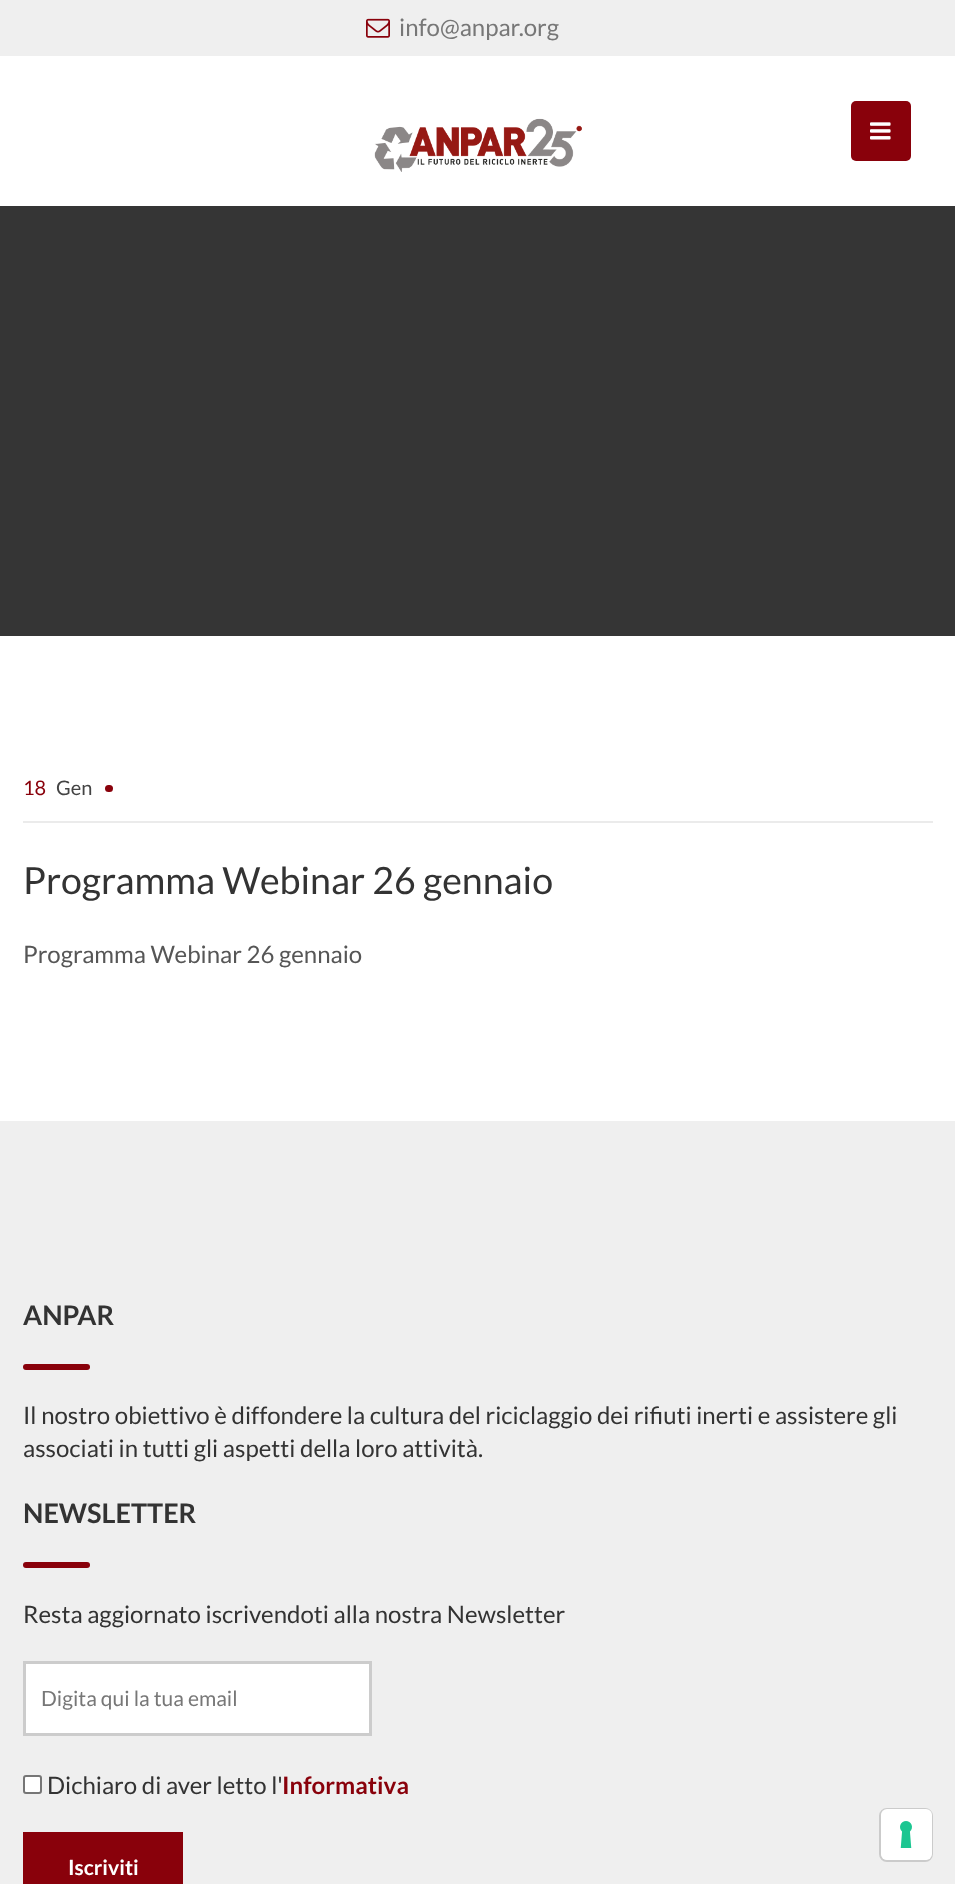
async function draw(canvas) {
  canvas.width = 955;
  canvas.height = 1884;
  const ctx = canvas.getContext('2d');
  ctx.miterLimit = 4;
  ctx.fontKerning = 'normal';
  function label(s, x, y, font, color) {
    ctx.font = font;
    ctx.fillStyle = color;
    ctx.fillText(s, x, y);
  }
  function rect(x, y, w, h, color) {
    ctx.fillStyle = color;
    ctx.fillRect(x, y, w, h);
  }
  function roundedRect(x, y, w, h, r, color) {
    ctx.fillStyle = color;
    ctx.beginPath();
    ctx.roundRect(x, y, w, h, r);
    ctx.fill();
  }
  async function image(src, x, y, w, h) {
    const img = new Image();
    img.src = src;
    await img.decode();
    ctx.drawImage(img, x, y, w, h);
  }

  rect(0, 0, 955, 1884, '#fff');
  rect(0, 0, 955, 56, '#efefef');
  await image('assets/img1.png', 366, 18, 24, 20);
  label('info@anpar.org', 399, 36, '24px Lato', '#777');
  await image('assets/img2.png', 374, 118, 208, 54);
  roundedRect(851, 101, 60, 60, 5, '#89010b');
  await image('assets/img3.png', 870, 122, 21, 18);
  rect(0, 206, 955, 430, '#353535');
  rect(23, 821, 910, 2, '#ebebeb');
  label('18', 23, 795, '20px Lato', '#89010b');
  label('Gen', 56, 795, '20px Lato', '#444');
  roundedRect(105, 785, 8, 7, 3.5, '#89010b');
  label('Programma Webinar 26 gennaio', 23, 894, '37.5px Lato', '#333');
  label('Programma Webinar 26 gennaio', 23, 963, '24px Lato', '#565656');
  rect(0, 1121, 955, 763, '#efefef');
  label('ANPAR', 23, 1325, 'bold 27px Lato', '#333');
  roundedRect(23, 1364, 67, 6, 3, '#89010b');
  label('Il nostro obiettivo è diffondere la cultura del riciclaggio dei rifiuti inerti e assistere gli', 23, 1424, '24px Lato', '#333');
  label('associati in tutti gli aspetti della loro attività.', 23, 1457, '24px Lato', '#333');
  label('NEWSLETTER', 23, 1523, 'bold 27px Lato', '#333');
  roundedRect(23, 1562, 67, 6, 3, '#89010b');
  label('Resta aggiornato iscrivendoti alla nostra Newsletter', 23, 1623, '24px Lato', '#333');
  ctx.fillStyle = '#fff';
  ctx.beginPath();
  ctx.rect(24.5, 1662.5, 346, 72);
  ctx.fill();
  ctx.strokeStyle = '#ccc';
  ctx.lineWidth = 3;
  ctx.stroke();
  label('Digita qui la tua email', 41, 1706, '21px Lato', '#777');
  ctx.fillStyle = '#fff';
  ctx.beginPath();
  ctx.roundRect(24, 1776, 17, 17, 2);
  ctx.fill();
  ctx.strokeStyle = '#767676';
  ctx.lineWidth = 2;
  ctx.stroke();
  label('Dichiaro di aver letto l\'', 47, 1794, '24px Lato', '#333');
  label('Informativa', 282, 1794, 'bold 24px Lato', '#89010b');
  rect(23, 1832, 160, 52, '#89010b');
  label('Iscriviti', 68, 1875, 'bold 21px Lato', '#fff');
  ctx.beginPath();
  ctx.roundRect(880, 1809, 52, 52, 7);
  ctx.strokeStyle = '#cbcbcb';
  ctx.stroke();
  roundedRect(881, 1809, 51, 51, 6, '#fff');
  await image('assets/img4.png', 900, 1821, 12, 27);
}

draw(document.querySelector('canvas'));
